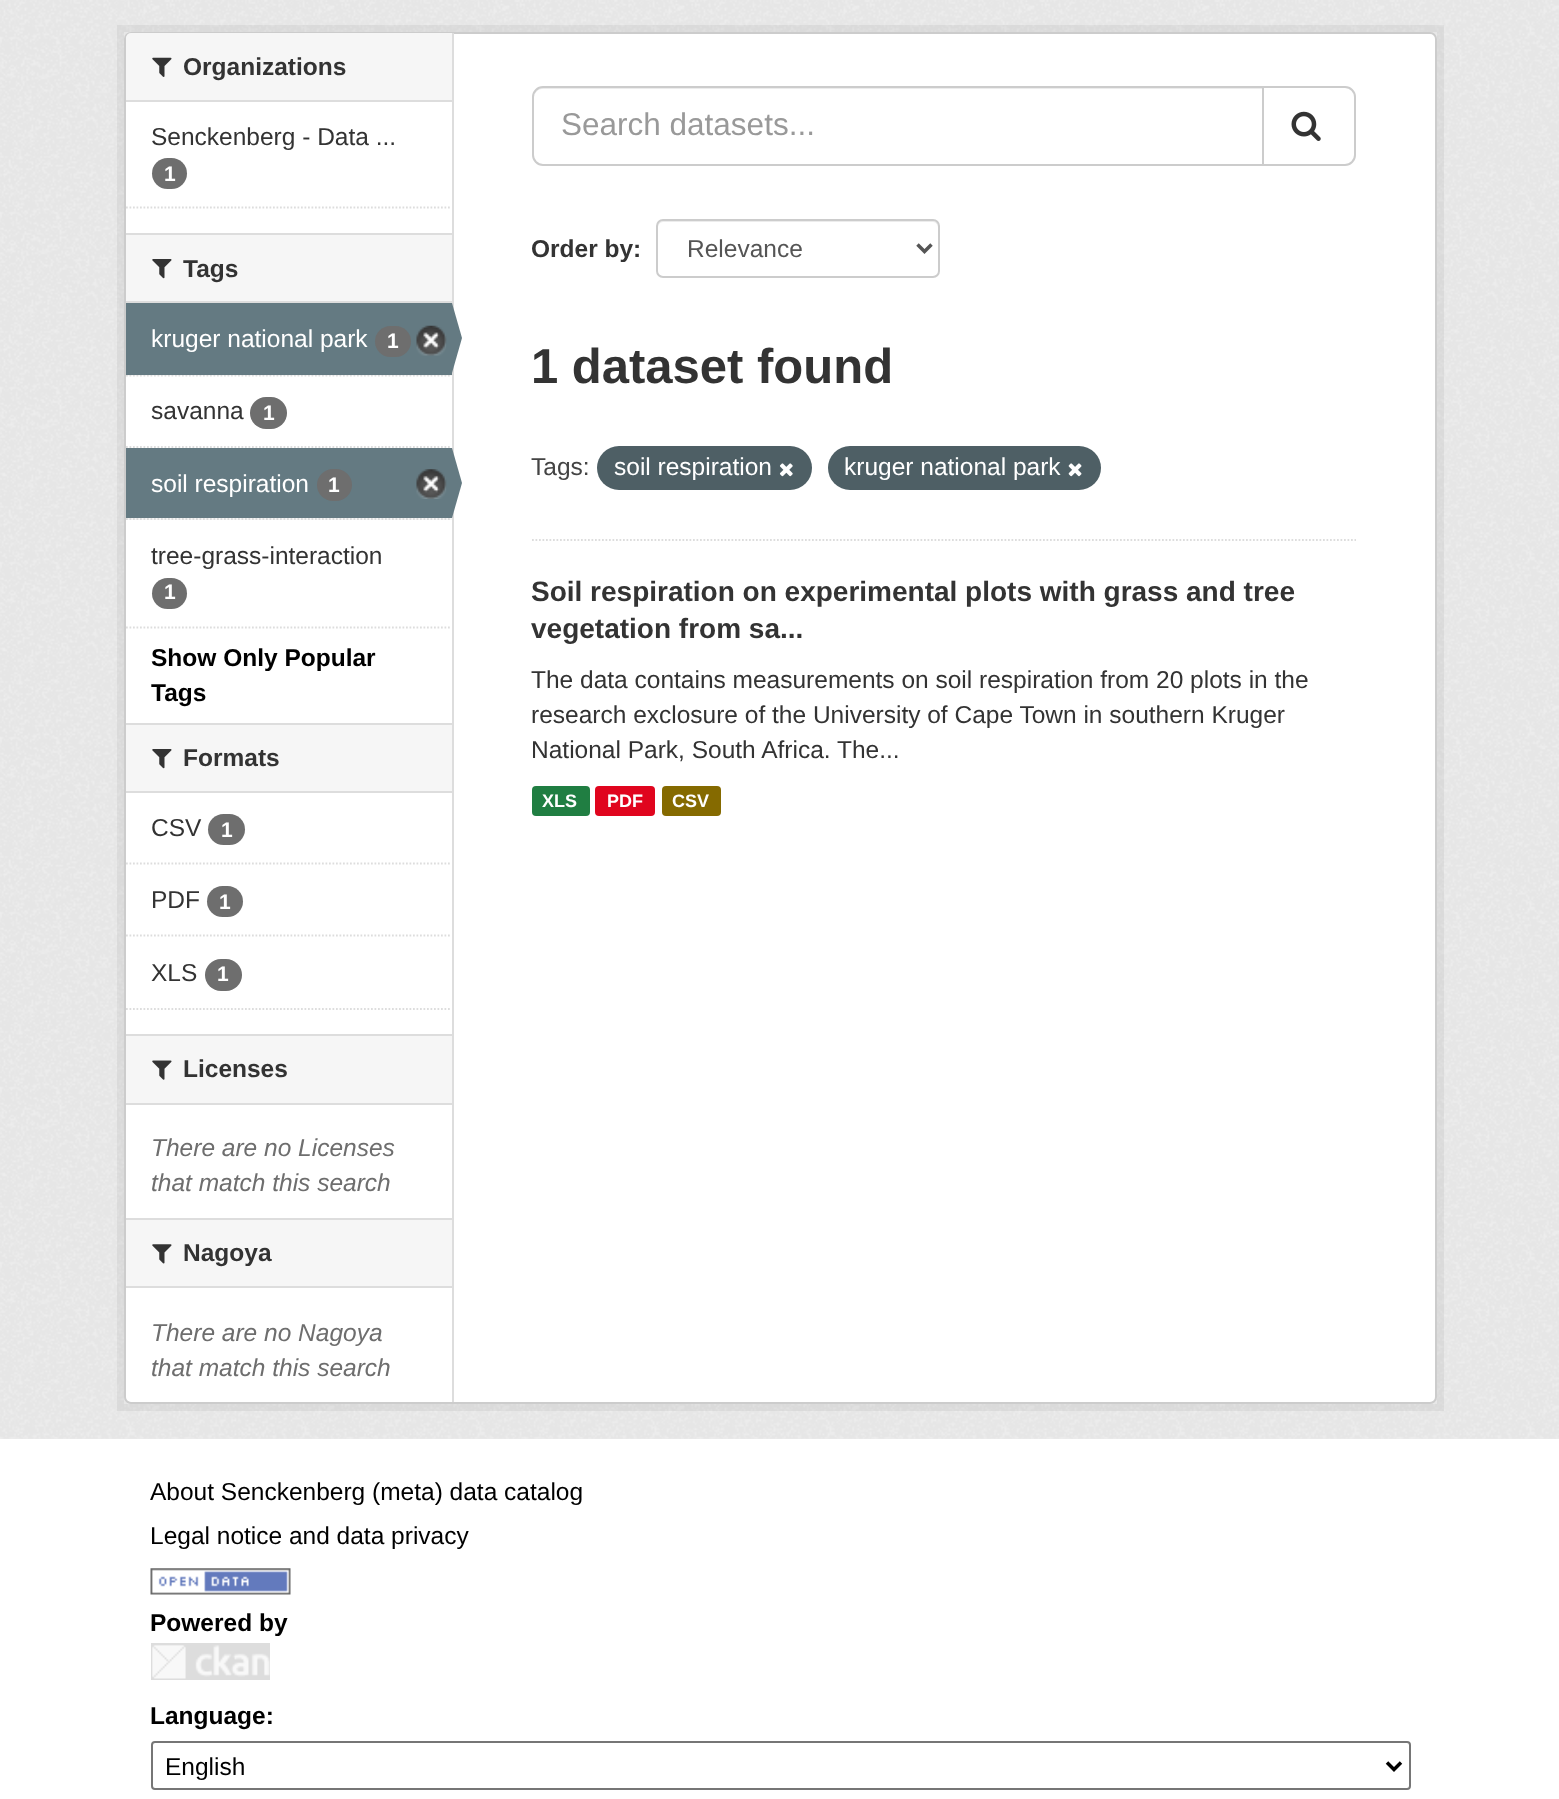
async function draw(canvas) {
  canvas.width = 1559;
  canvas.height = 1799;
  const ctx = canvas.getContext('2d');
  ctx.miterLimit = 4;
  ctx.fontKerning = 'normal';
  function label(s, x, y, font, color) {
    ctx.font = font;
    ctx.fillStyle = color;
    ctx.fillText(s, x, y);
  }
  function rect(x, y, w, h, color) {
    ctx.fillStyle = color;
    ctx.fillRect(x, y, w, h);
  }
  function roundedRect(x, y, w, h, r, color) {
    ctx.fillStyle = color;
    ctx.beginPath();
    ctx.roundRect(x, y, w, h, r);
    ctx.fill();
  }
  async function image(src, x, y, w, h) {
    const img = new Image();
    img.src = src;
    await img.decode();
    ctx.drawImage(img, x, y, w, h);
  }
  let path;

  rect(0, 0, 1559, 1799, '#fff');
  rect(0, 0, 1559, 1439, '#eee');
  await image('assets/img1.png', 0, 0, 1559, 1439);
  ctx.strokeStyle = '#0000000d';
  ctx.lineWidth = 7;
  ctx.strokeRect(120.5, 28.5, 1320, 1379);
  ctx.fillStyle = '#fff';
  ctx.beginPath();
  ctx.roundRect(125, 33, 1311, 1370, 6);
  ctx.fill();
  ctx.strokeStyle = '#ccc';
  ctx.lineWidth = 2;
  ctx.stroke();
  ctx.fillStyle = '#f6f6f6';
  ctx.beginPath();
  ctx.roundRect(126, 33, 326, 69, [5, 0, 0, 0]);
  ctx.fill();
  rect(126, 100, 326, 2, '#ddd');
  await image('assets/img2.png', 152, 57, 20, 20);
  label('Organizations', 183, 75, 'bold 24.5px Liberation Sans', '#333');
  label('Senckenberg - Data ...', 151, 145, '24.5px Liberation Sans', '#333');
  roundedRect(152, 158, 35, 31, 15.5, '#6e6e6e');
  label('1', 164, 181, 'bold 21px Liberation Sans', '#fff');
  path = new Path2D('M126 207.5H451.5');
  ctx.strokeStyle = '#ddd';
  ctx.lineWidth = 1.8;
  ctx.setLineDash([1.75, 1.75]);
  ctx.stroke(path);
  rect(126, 235, 326, 66, '#f6f6f6');
  rect(126, 233, 326, 2, '#ddd');
  rect(126, 301, 326, 2, '#ddd');
  await image('assets/img3.png', 152, 259, 20, 20);
  label('Tags', 183, 277, 'bold 24.5px Liberation Sans', '#333');
  rect(127, 375, 325, 1, '#f6f6f6');
  path = new Path2D('M126 375.5H451.5');
  ctx.stroke(path);
  rect(126, 303, 326, 72, '#647a82');
  label('kruger national park', 151, 347, '24.5px Liberation Sans', '#fff');
  roundedRect(375, 326, 36, 31, 15.5, '#6e6e6e');
  label('1', 387, 348, 'bold 21px Liberation Sans', '#fff');
  await image('assets/img4.png', 416, 325, 31, 31);
  rect(452, 33, 2, 1369, '#ddd');
  ctx.fillStyle = '#647a82';
  path = new Path2D('M452 373V303L462 338Z');
  ctx.fill(path);
  path = new Path2D('M126 447H451.5');
  ctx.stroke(path);
  label('savanna', 151, 419, '24.5px Liberation Sans', '#333');
  roundedRect(250, 397, 37, 32, 16, '#6e6e6e');
  label('1', 263, 420, 'bold 21px Liberation Sans', '#fff');
  rect(126, 518, 326, 2, '#f6f6f6');
  path = new Path2D('M126 519H451.5');
  ctx.stroke(path);
  rect(126, 448, 326, 70, '#647a82');
  label('soil respiration', 151, 492, '24.5px Liberation Sans', '#fff');
  roundedRect(317, 469, 35, 32, 16, '#6e6e6e');
  label('1', 328, 492, 'bold 21px Liberation Sans', '#fff');
  await image('assets/img5.png', 416, 469, 31, 30);
  ctx.fillStyle = '#647a82';
  path = new Path2D('M452 518V448L462 483Z');
  ctx.fill(path);
  label('tree-grass-interaction', 151, 564, '24.5px Liberation Sans', '#333');
  roundedRect(152, 578, 35, 31, 15.5, '#6e6e6e');
  label('1', 164, 599, 'bold 21px Liberation Sans', '#fff');
  path = new Path2D('M126 627.5H451.5');
  ctx.stroke(path);
  label('Show Only Popular', 151, 666, 'bold 24.5px Liberation Sans', '#000');
  label('Tags', 151, 701, 'bold 24.5px Liberation Sans', '#000');
  rect(126, 725, 326, 66, '#f6f6f6');
  rect(126, 723, 326, 2, '#ddd');
  rect(126, 791, 326, 2, '#ddd');
  await image('assets/img3.png', 152, 749, 20, 20);
  label('Formats', 183, 766, 'bold 24.5px Liberation Sans', '#333');
  path = new Path2D('M126 863.5H451.5');
  ctx.stroke(path);
  label('CSV', 151, 836, '24.5px Liberation Sans', '#333');
  roundedRect(208, 814, 37, 31, 15.5, '#6e6e6e');
  label('1', 221, 837, 'bold 21px Liberation Sans', '#fff');
  path = new Path2D('M126 935.5H451.5');
  ctx.stroke(path);
  label('PDF', 151, 908, '24.5px Liberation Sans', '#333');
  roundedRect(207, 886, 36, 31, 15.5, '#6e6e6e');
  label('1', 219, 909, 'bold 21px Liberation Sans', '#fff');
  label('XLS', 151, 981, '24.5px Liberation Sans', '#333');
  roundedRect(205, 959, 37, 32, 16, '#6e6e6e');
  label('1', 217, 981, 'bold 21px Liberation Sans', '#fff');
  path = new Path2D('M126 1009H451.5');
  ctx.stroke(path);
  rect(126, 1036, 326, 67, '#f6f6f6');
  rect(126, 1034, 326, 2, '#ddd');
  rect(126, 1103, 326, 2, '#ddd');
  await image('assets/img6.png', 152, 1060, 20, 20);
  label('Licenses', 183, 1077, 'bold 24.5px Liberation Sans', '#333');
  label('There are no Licenses', 151, 1156, 'italic 24.5px Liberation Sans', '#6e6e6e');
  label('that match this search', 151, 1191, 'italic 24.5px Liberation Sans', '#6e6e6e');
  rect(126, 1220, 326, 66, '#f6f6f6');
  rect(126, 1218, 326, 2, '#ddd');
  rect(126, 1286, 326, 2, '#ddd');
  await image('assets/img7.png', 152, 1244, 20, 20);
  label('Nagoya', 183, 1261, 'bold 24.5px Liberation Sans', '#333');
  label('There are no Nagoya', 151, 1341, 'italic 24.5px Liberation Sans', '#6e6e6e');
  label('that match this search', 151, 1376, 'italic 24.5px Liberation Sans', '#6e6e6e');
  path = new Path2D('M532 540H1356');
  ctx.stroke(path);
  ctx.fillStyle = '#ececec';
  path = new Path2D('M542 89H1262V88H543C538 88 534 92 534 97V98C534 93 538 89 542 89Z');
  ctx.fill(path);
  ctx.beginPath();
  ctx.roundRect(533, 87, 730, 78, [10, 0, 0, 10]);
  ctx.strokeStyle = '#ccc';
  ctx.lineWidth = 2;
  ctx.setLineDash([]);
  ctx.stroke();
  label('Search datasets...', 561, 135, '31.5px Liberation Sans', '#999');
  ctx.fillStyle = '#fff';
  ctx.beginPath();
  ctx.roundRect(1263, 87, 92, 78, [0, 10, 10, 0]);
  ctx.fill();
  ctx.stroke();
  await image('assets/img8.png', 1291, 111, 30, 30);
  label('Order by:', 531, 257, 'bold 24.5px Liberation Sans', '#333');
  ctx.fillStyle = '#ececec';
  path = new Path2D('M663 222H933C936 222 938 225 938 228V226C938 223 936 221 933 221H663C660 221 658 223 658 226V228C658 225 660 222 663 222Z');
  ctx.fill(path);
  ctx.beginPath();
  ctx.roundRect(657, 220, 282, 57, 6);
  ctx.stroke();
  path = new Path2D('M917.5 244.5L924.5 251.5L931.5 244.5');
  ctx.strokeStyle = '#555';
  ctx.lineWidth = 3.5;
  ctx.stroke(path);
  label('Relevance', 687, 257, '24.5px Liberation Sans', '#555');
  label('1 dataset found', 531, 383, 'bold 49px Liberation Sans', '#333');
  label('Tags:', 531, 475, '24.5px Liberation Sans', '#444');
  roundedRect(597, 446, 215, 44, 22, '#4e5f65');
  label('soil respiration', 614, 475, '24.5px Liberation Sans', '#fff');
  await image('assets/img9.png', 779, 463, 14, 14);
  roundedRect(828, 446, 273, 44, 22, '#4e5f65');
  label('kruger national park', 844, 475, '24.5px Liberation Sans', '#fff');
  await image('assets/img10.png', 1068, 463, 14, 14);
  label('Soil respiration on experimental plots with grass and tree', 531, 601, 'bold 28px Liberation Sans', '#333');
  label('vegetation from sa...', 531, 638, 'bold 28px Liberation Sans', '#333');
  label('The data contains measurements on soil respiration from 20 plots in the', 531, 688, '24.5px Liberation Sans', '#333');
  label('research exclosure of the University of Cape Town in southern Kruger', 531, 723, '24.5px Liberation Sans', '#333');
  label('National Park, South Africa. The...', 531, 758, '24.5px Liberation Sans', '#333');
  roundedRect(532, 786, 58, 30, 4, '#207e42');
  label('XLS', 542, 807, 'bold 18px Liberation Sans', '#fff');
  roundedRect(595, 786, 60, 30, 4, '#e0051e');
  label('PDF', 607, 807, 'bold 18px Liberation Sans', '#fff');
  roundedRect(662, 786, 59, 30, 4, '#856a00');
  label('CSV', 672, 807, 'bold 18px Liberation Sans', '#fff');
  label('About Senckenberg (meta) data catalog', 150, 1500, '24.5px Liberation Sans', '#000');
  label('Legal notice and data privacy', 150, 1544, '24.5px Liberation Sans', '#000');
  await image('assets/img11.png', 150, 1568, 141, 27);
  label('Powered by', 150, 1631, 'bold 24.5px Liberation Sans', '#000');
  rect(151, 1643, 119, 37, '#ddd');
  await image('assets/img12.png', 152, 1645, 118, 34);
  label('Language:', 150, 1724, 'bold 24.5px Liberation Sans', '#000');
  ctx.beginPath();
  ctx.roundRect(152, 1742, 1258, 47, 3);
  ctx.strokeStyle = '#767676';
  ctx.lineWidth = 2;
  ctx.stroke();
  path = new Path2D('M1387 1762.5L1394 1769.5L1401 1762.5');
  ctx.strokeStyle = '#000';
  ctx.lineWidth = 3.5;
  ctx.stroke(path);
  label('English', 165, 1775, '24.5px Liberation Sans', '#000');
}

draw(document.querySelector('canvas'));
